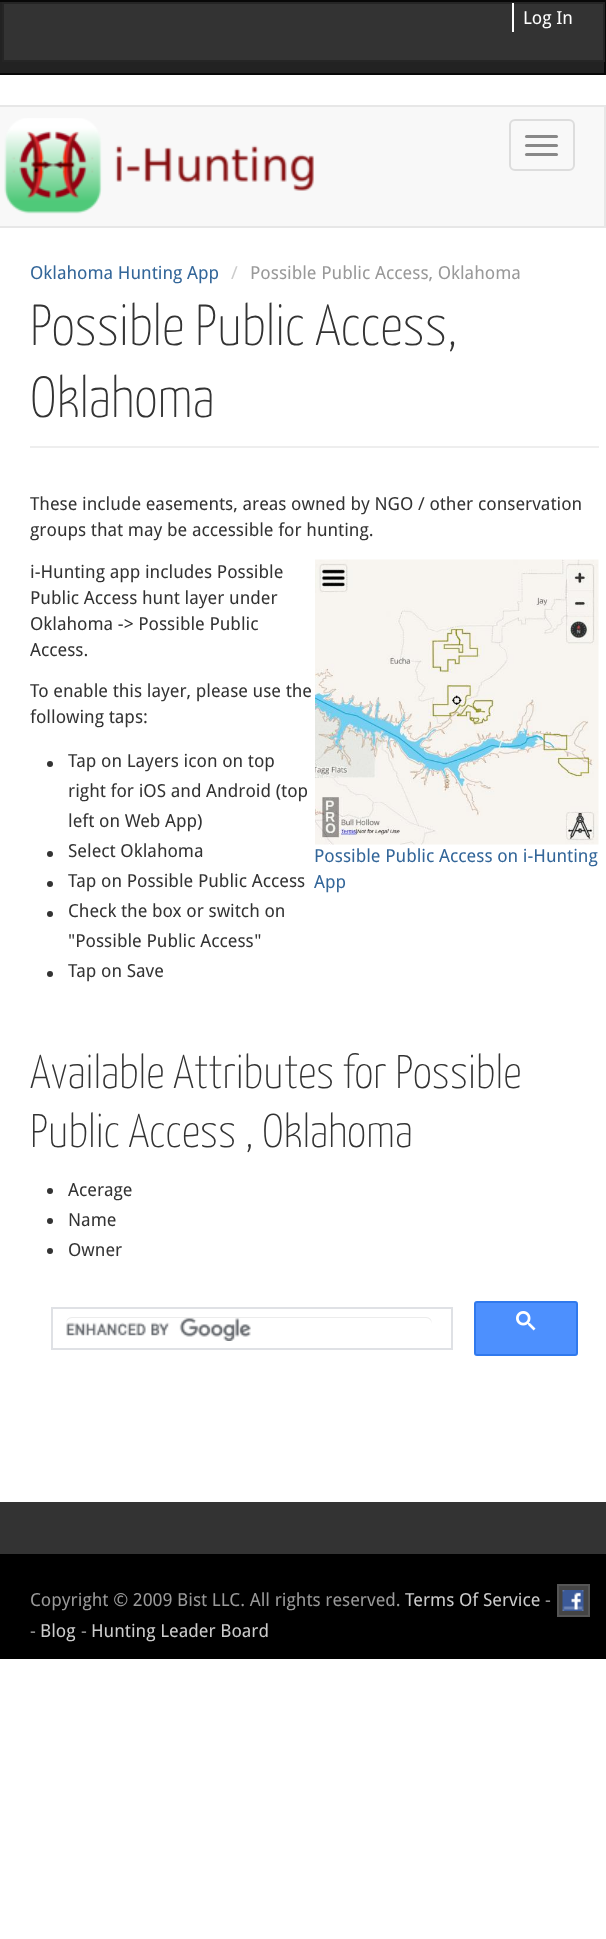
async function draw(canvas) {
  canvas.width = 606;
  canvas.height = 1939;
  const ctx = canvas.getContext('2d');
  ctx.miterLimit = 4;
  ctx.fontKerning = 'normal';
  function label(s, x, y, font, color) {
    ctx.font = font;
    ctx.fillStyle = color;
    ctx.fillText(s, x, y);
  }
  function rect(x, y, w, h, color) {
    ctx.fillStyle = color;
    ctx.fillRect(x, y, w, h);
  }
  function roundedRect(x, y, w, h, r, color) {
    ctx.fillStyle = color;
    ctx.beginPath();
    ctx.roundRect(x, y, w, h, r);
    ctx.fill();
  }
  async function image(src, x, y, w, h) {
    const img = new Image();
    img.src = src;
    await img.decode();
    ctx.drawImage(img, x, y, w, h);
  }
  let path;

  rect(0, 0, 606, 1939, '#fff');
  ctx.fillStyle = '#222';
  ctx.beginPath();
  ctx.rect(-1, 1, 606, 73);
  ctx.fill();
  ctx.strokeStyle = '#080808';
  ctx.lineWidth = 2;
  ctx.stroke();
  ctx.fillStyle = '#333';
  ctx.beginPath();
  ctx.rect(3, 3, 601, 58);
  ctx.fill();
  ctx.strokeStyle = '#252525';
  ctx.stroke();
  rect(512, 3, 2, 29, '#fff');
  label('Log In', 523, 24, '18px Droid Sans', '#fff');
  ctx.fillStyle = '#f8f8f8';
  ctx.beginPath();
  ctx.rect(-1, 106, 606, 121);
  ctx.fill();
  ctx.strokeStyle = '#e7e7e7';
  ctx.stroke();
  await image('assets/img1.png', 4, 118, 310, 96);
  ctx.beginPath();
  ctx.roundRect(510, 120, 64, 50, 5);
  ctx.strokeStyle = '#ddd';
  ctx.stroke();
  roundedRect(525, 135, 33, 3, 1.5, '#888');
  roundedRect(525, 144, 33, 3, 1.5, '#888');
  roundedRect(525, 153, 33, 3, 1.5, '#888');
  label('Oklahoma Hunting App', 30, 279, '18px Droid Sans', '#369');
  label('/', 231, 279, '18px Droid Sans', '#ccc');
  label('Possible Public Access, Oklahoma', 250, 279, '18px Droid Sans', '#999');
  rect(30, 446, 569, 2, '#eee');
  label('Possible Public Access,', 30, 345, '100 57.75px Yanone Kaffeesatz', '#333');
  label('Oklahoma', 30, 417, '100 57.75px Yanone Kaffeesatz', '#333');
  label('These include easements, areas owned by NGO / other conservation', 30, 510, '18px Droid Sans', '#333');
  label('groups that may be accessible for hunting.', 30, 536, '18px Droid Sans', '#333');
  label('i-Hunting app includes Possible', 30, 578, '18px Droid Sans', '#333');
  label('Public Access hunt layer under', 30, 604, '18px Droid Sans', '#333');
  label('Oklahoma -> Possible Public', 30, 630, '18px Droid Sans', '#333');
  label('Access.', 30, 656, '18px Droid Sans', '#333');
  label('To enable this layer, please use the', 30, 697, '18px Droid Sans', '#333');
  label('following taps:', 30, 723, '18px Droid Sans', '#333');
  ctx.beginPath();
  ctx.arc(50, 764, 3, 0, 2 * Math.PI);
  ctx.fill();
  label('Tap on Layers icon on top', 68, 767, '18px Droid Sans', '#333');
  label('right for iOS and Android (top', 68, 797, '18px Droid Sans', '#333');
  label('left on Web App)', 68, 827, '18px Droid Sans', '#333');
  ctx.beginPath();
  ctx.arc(50, 854, 3, 0, 2 * Math.PI);
  ctx.fill();
  label('Select Oklahoma', 68, 857, '18px Droid Sans', '#333');
  ctx.beginPath();
  ctx.arc(50, 884, 3, 0, 2 * Math.PI);
  ctx.fill();
  label('Tap on Possible Public Access', 68, 887, '18px Droid Sans', '#333');
  ctx.beginPath();
  ctx.arc(50, 914, 3, 0, 2 * Math.PI);
  ctx.fill();
  label('Check the box or switch on', 68, 917, '18px Droid Sans', '#333');
  label('"Possible Public Access"', 68, 947, '18px Droid Sans', '#333');
  ctx.beginPath();
  ctx.arc(50, 974, 3, 0, 2 * Math.PI);
  ctx.fill();
  label('Tap on Save', 68, 977, '18px Droid Sans', '#333');
  await image('assets/img2.png', 315, 559, 284, 286);
  label('Possible Public Access on i-Hunting', 314, 862, '18px Droid Sans', '#369');
  label('App', 314, 888, '18px Droid Sans', '#369');
  label('Available Attributes for Possible', 30, 1088, '100 47.25px Yanone Kaffeesatz', '#333');
  label('Public Access , Oklahoma', 30, 1147, '100 47.25px Yanone Kaffeesatz', '#333');
  ctx.beginPath();
  ctx.arc(50, 1191, 3, 0, 2 * Math.PI);
  ctx.fill();
  label('Acerage', 68, 1196, '18px Droid Sans', '#333');
  ctx.beginPath();
  ctx.arc(50, 1221, 3, 0, 2 * Math.PI);
  ctx.fill();
  label('Name', 68, 1226, '18px Droid Sans', '#333');
  ctx.beginPath();
  ctx.arc(50, 1251, 3, 0, 2 * Math.PI);
  ctx.fill();
  label('Owner', 68, 1256, '18px Droid Sans', '#333');
  ctx.strokeStyle = '#dfe1e5';
  ctx.strokeRect(52, 1308, 400, 41);
  await image('assets/img3.png', 66, 1318, 185, 23);
  ctx.fillStyle = '#ececec';
  path = new Path2D('M72 1318H426C429 1318 432 1321 432 1324C432 1320 430 1317 426 1317H72C68 1317 66 1320 66 1324C66 1321 69 1318 72 1318Z');
  ctx.fill(path);
  ctx.fillStyle = '#4d90fe';
  ctx.beginPath();
  ctx.roundRect(475, 1302, 102, 53, 2);
  ctx.fill();
  ctx.strokeStyle = '#3079ed';
  ctx.stroke();
  await image('assets/img4.png', 516, 1311, 20, 20);
  rect(0, 1502, 606, 52, '#333');
  rect(0, 1554, 606, 105, '#000');
  ctx.fillStyle = '#444';
  ctx.beginPath();
  ctx.rect(558, 1585, 31, 31);
  ctx.fill();
  ctx.strokeStyle = '#555';
  ctx.stroke();
  label('Copyright © 2009 Bist LLC. All rights reserved.', 30, 1606, '18px Droid Sans', '#999');
  label('Terms Of Service', 405, 1606, '18px Droid Sans', '#ccc');
  label('-', 545, 1606, '18px Droid Sans', '#999');
  await image('assets/img5.png', 562, 1590, 22, 21);
  label('-', 30, 1637, '18px Droid Sans', '#999');
  label('Blog', 40, 1637, '18px Droid Sans', '#ccc');
  label('-', 81, 1637, '18px Droid Sans', '#999');
  label('Hunting Leader Board', 91, 1637, '18px Droid Sans', '#ccc');
}

draw(document.querySelector('canvas'));
